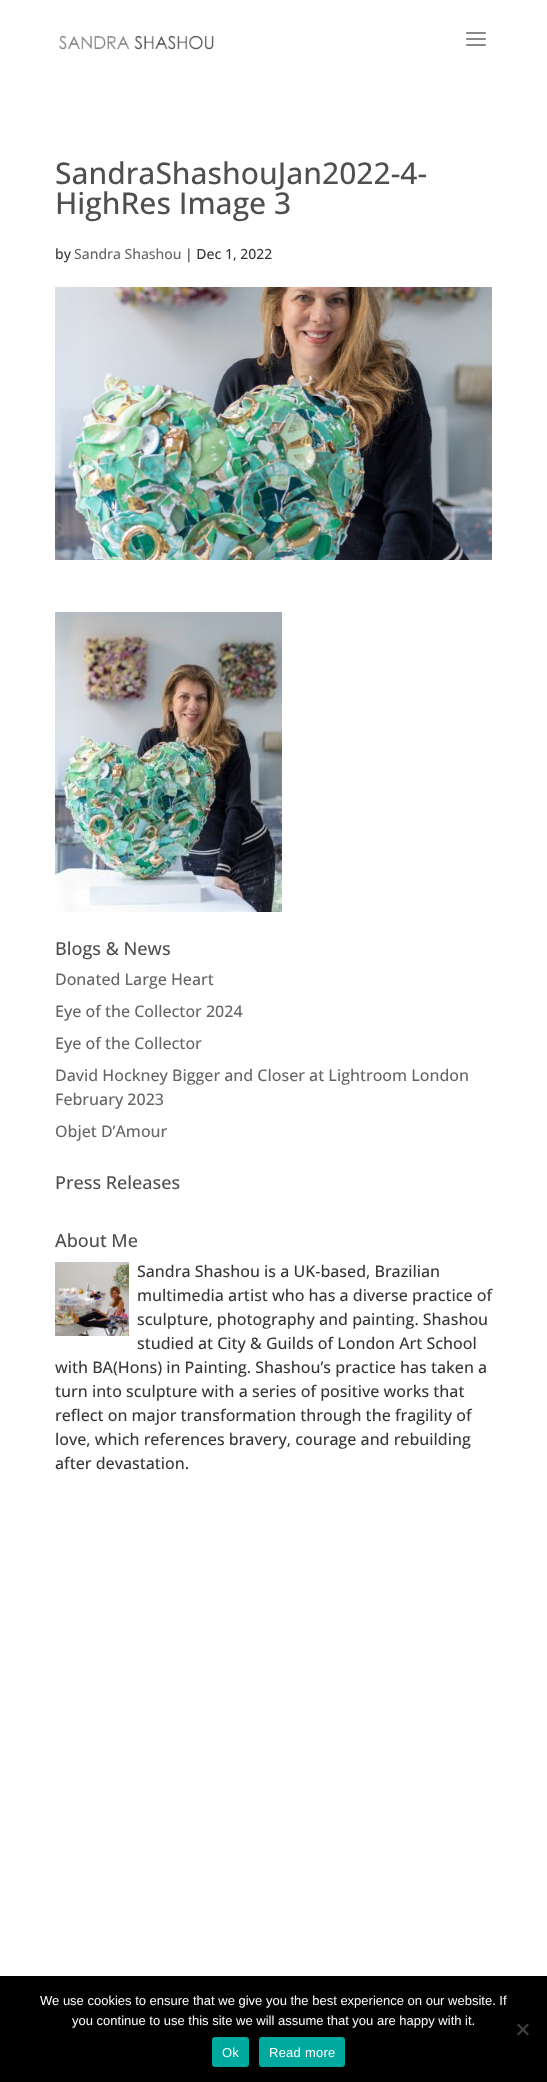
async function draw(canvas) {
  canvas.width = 547;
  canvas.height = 2082;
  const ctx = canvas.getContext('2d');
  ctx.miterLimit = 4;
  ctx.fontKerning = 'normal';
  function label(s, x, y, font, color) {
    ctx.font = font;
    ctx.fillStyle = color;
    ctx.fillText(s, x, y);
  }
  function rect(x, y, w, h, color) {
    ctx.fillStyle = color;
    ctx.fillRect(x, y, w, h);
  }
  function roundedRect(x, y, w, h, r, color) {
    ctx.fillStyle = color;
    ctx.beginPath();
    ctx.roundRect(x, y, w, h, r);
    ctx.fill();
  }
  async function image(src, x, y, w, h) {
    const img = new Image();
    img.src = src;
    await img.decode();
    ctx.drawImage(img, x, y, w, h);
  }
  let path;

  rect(0, 0, 547, 2082, '#fff');
  await image('assets/img1.png', 59, 35, 155, 15);
  await image('assets/img2.png', 466, 32, 20, 14);
  label('SandraShashouJan2022-4-', 55, 184, '500 30px Open Sans', '#4f4f4f');
  label('HighRes Image 3', 55, 214, '500 30px Open Sans', '#4f4f4f');
  label('by', 55, 259, '500 14px Open Sans', '#373737');
  label('Sandra Shashou', 74, 259, '500 14px Open Sans', '#666');
  label('| Dec 1, 2022', 185, 259, '500 14px Open Sans', '#373737');
  await image('assets/img3.png', 55, 287, 437, 273);
  await image('assets/img4.png', 55, 612, 227, 300);
  label('Blogs & News', 55, 955, '500 18px Open Sans', '#4f4f4f');
  label('Donated Large Heart', 55, 985, '500 16px Open Sans', '#666');
  label('Eye of the Collector 2024', 55, 1017, '500 16px Open Sans', '#666');
  label('Eye of the Collector', 55, 1049, '500 16px Open Sans', '#666');
  label('David Hockney Bigger and Closer at Lightroom London', 55, 1081, '500 16px Open Sans', '#666');
  label('February 2023', 55, 1105, '500 16px Open Sans', '#666');
  label('Objet D’Amour', 55, 1137, '500 16px Open Sans', '#666');
  label('Press Releases', 55, 1189, '500 18px Open Sans', '#4f4f4f');
  label('About Me', 55, 1247, '500 18px Open Sans', '#4f4f4f');
  await image('assets/img5.png', 55, 1262, 74, 74);
  label('Sandra Shashou is a UK-based, Brazilian', 137, 1277, '500 16px Open Sans', '#373737');
  label('multimedia artist who has a diverse practice of', 137, 1301, '500 16px Open Sans', '#373737');
  label('sculpture, photography and painting. Shashou', 137, 1325, '500 16px Open Sans', '#373737');
  label('studied at City & Guilds of London Art School', 137, 1349, '500 16px Open Sans', '#373737');
  label('with BA(Hons) in Painting. Shashou’s practice has taken a', 55, 1373, '500 16px Open Sans', '#373737');
  label('turn into sculpture with a series of positive works that', 55, 1397, '500 16px Open Sans', '#373737');
  label('reflect on major transformation through the fragility of', 55, 1421, '500 16px Open Sans', '#373737');
  label('love, which references bravery, courage and rebuilding', 55, 1445, '500 16px Open Sans', '#373737');
  label('after devastation.', 55, 1469, '500 16px Open Sans', '#373737');
  rect(0, 1976, 547, 106, '#000');
  label('We use cookies to ensure that we give you the best experience on our website. If', 40, 2005, '13px Liberation Sans', '#fff');
  label('you continue to use this site we will assume that you are happy with it.', 72, 2025, '13px Liberation Sans', '#fff');
  ctx.fillStyle = '#404040';
  path = new Path2D('M527.5 2023.5L529 2025L518.5 2035.5L517 2034Z');
  ctx.fill(path);
  path = new Path2D('M517 2025L518.5 2023.5L529 2034L527.5 2035.5Z');
  ctx.fill(path);
  roundedRect(212, 2037, 37, 30, 3, '#00a99d');
  ctx.letterSpacing = '0.25px';
  label('Ok', 222, 2057, '13px Liberation Sans', '#fff');
  roundedRect(259, 2037, 86, 30, 3, '#00a99d');
  label('Read more', 269, 2057, '13px Liberation Sans', '#fff');
}

draw(document.querySelector('canvas'));
